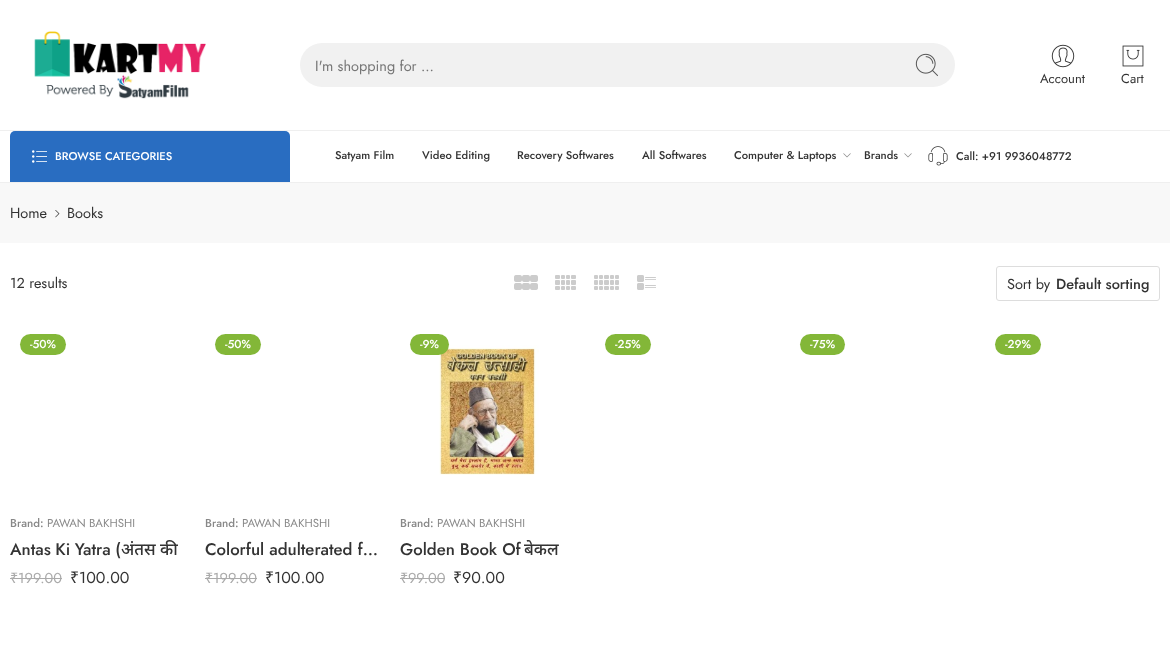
async function draw(canvas) {
  canvas.width = 1170;
  canvas.height = 665;
  const ctx = canvas.getContext('2d');
  ctx.miterLimit = 4;
  ctx.fontKerning = 'normal';
  function label(s, x, y, font, color) {
    ctx.font = font;
    ctx.fillStyle = color;
    ctx.fillText(s, x, y);
  }
  function rect(x, y, w, h, color) {
    ctx.fillStyle = color;
    ctx.fillRect(x, y, w, h);
  }
  function roundedRect(x, y, w, h, r, color) {
    ctx.fillStyle = color;
    ctx.beginPath();
    ctx.roundRect(x, y, w, h, r);
    ctx.fill();
  }
  async function image(src, x, y, w, h) {
    const img = new Image();
    img.src = src;
    await img.decode();
    ctx.drawImage(img, x, y, w, h);
  }

  rect(0, 0, 1170, 665, '#fff');
  await image('assets/img1.png', 34, 31, 172, 68);
  roundedRect(300, 43, 655, 44, 22, '#f1f1f1');
  label('I\'m shopping for ...', 315, 71, '14.5px Jost', '#757575');
  await image('assets/img2.png', 915, 53, 23, 24);
  await image('assets/img3.png', 1051, 44, 24, 24);
  label('Account', 1040, 83, '13px Jost', '#333');
  await image('assets/img4.png', 1122, 45, 22, 22);
  label('Cart', 1121, 83, '13px Jost', '#333');
  rect(0, 130, 1170, 1, '#efefef');
  rect(0, 182, 1170, 1, '#efefef');
  ctx.fillStyle = '#296dc1';
  ctx.beginPath();
  ctx.roundRect(10, 131, 280, 51, [5, 5, 0, 0]);
  ctx.fill();
  await image('assets/img5.png', 32, 150, 15, 13);
  label('BROWSE CATEGORIES', 55, 160, '500 11.25px Jost', '#fff');
  label('Satyam Film', 335, 159, '500 11.25px Jost', '#333');
  label('Video Editing', 422, 159, '500 11.25px Jost', '#333');
  label('Recovery Softwares', 517, 159, '500 11.25px Jost', '#333');
  label('All Softwares', 642, 159, '500 11.25px Jost', '#333');
  label('Computer & Laptops', 734, 159, '500 11.25px Jost', '#333');
  await image('assets/img6.png', 843, 153, 8, 5);
  label('Brands', 864, 159, '500 11.25px Jost', '#333');
  await image('assets/img6.png', 904, 153, 8, 5);
  await image('assets/img7.png', 928, 146, 20, 20);
  label('Call: +91 9936048772', 956, 160, '500 11.25px Jost', '#333');
  rect(0, 183, 1170, 60, '#f8f8f8');
  label('Home', 10, 218, '14.5px Jost', '#333');
  await image('assets/img8.png', 55, 210, 5, 8);
  label('Books', 67, 218, '14.5px Jost', '#333');
  label('12 results', 10, 288, '14.5px Jost', '#333');
  await image('assets/img9.png', 514, 275, 24, 15);
  await image('assets/img10.png', 555, 275, 21, 15);
  await image('assets/img11.png', 594, 275, 25, 15);
  await image('assets/img12.png', 637, 275, 19, 15);
  ctx.beginPath();
  ctx.roundRect(996.5, 266.5, 163, 34, 2.5);
  ctx.strokeStyle = '#ddd';
  ctx.stroke();
  label('Sort by', 1007, 289, '14.5px Jost', '#333');
  label('Default sorting', 1056, 289, '500 14.5px Jost', '#333');
  roundedRect(20, 334, 46, 21, 10.5, '#83b738');
  label('-50%', 30, 348, '500 11.5px Jost', '#fff');
  label('Brand:', 10, 527, '500 11.5px Jost', '#888');
  label('PAWAN BAKHSHI', 47, 527, '11.5px Jost', '#888');
  ctx.wordSpacing = '-0.5px';
  label('Antas Ki Yatra (', 10, 555, '500 16.75px Jost', '#333');
  ctx.wordSpacing = '0px';
  label('अंतस', 121, 555, '500 16.75px Noto Sans', '#333');
  label('की', 160, 555, '500 16.75px Noto Sans', '#333');
  label('₹', 10, 583, '14.5px Noto Sans', '#aaa');
  rect(10, 578, 8, 1, '#aaa');
  label('199.00', 18, 583, '14.5px Jost', '#aaa');
  rect(18, 578, 44, 1, '#aaa');
  label('₹', 70, 583, '16px Noto Sans', '#333');
  label('100.00', 79, 583, '16px Jost', '#333');
  roundedRect(215, 334, 46, 21, 10.5, '#83b738');
  label('-50%', 225, 348, '500 11.5px Jost', '#fff');
  label('Brand:', 205, 527, '500 11.5px Jost', '#888');
  label('PAWAN BAKHSHI', 242, 527, '11.5px Jost', '#888');
  label('Colorful adulterated f…', 205, 555, '500 16.75px Jost', '#333');
  label('₹', 205, 583, '14.5px Noto Sans', '#aaa');
  rect(205, 578, 8, 1, '#aaa');
  label('199.00', 213, 583, '14.5px Jost', '#aaa');
  rect(213, 578, 44, 1, '#aaa');
  label('₹', 265, 583, '16px Noto Sans', '#333');
  label('100.00', 274, 583, '16px Jost', '#333');
  await image('assets/img13.png', 439, 345, 100, 130);
  roundedRect(410, 334, 39, 21, 10.5, '#83b738');
  label('-9%', 420, 348, '500 11.5px Jost', '#fff');
  label('Brand:', 400, 527, '500 11.5px Jost', '#888');
  label('PAWAN BAKHSHI', 437, 527, '11.5px Jost', '#888');
  label('Golden Book Of', 400, 555, '500 16.75px Jost', '#333');
  label('बेकल', 524, 555, '500 16.75px Noto Sans', '#333');
  label('₹', 400, 583, '14.5px Noto Sans', '#aaa');
  label('99.00', 408, 583, '14.5px Jost', '#aaa');
  rect(400, 578, 8, 1, '#aaa');
  rect(408, 578, 37, 1, '#aaa');
  label('₹', 453, 583, '16px Noto Sans', '#333');
  label('90.00', 462, 583, '16px Jost', '#333');
  roundedRect(605, 334, 46, 21, 10.5, '#83b738');
  label('-25%', 615, 348, '500 11.5px Jost', '#fff');
  roundedRect(800, 334, 45, 21, 10.5, '#83b738');
  label('-75%', 810, 348, '500 11.5px Jost', '#fff');
  roundedRect(995, 334, 46, 21, 10.5, '#83b738');
  label('-29%', 1005, 348, '500 11.5px Jost', '#fff');
}

draw(document.querySelector('canvas'));
